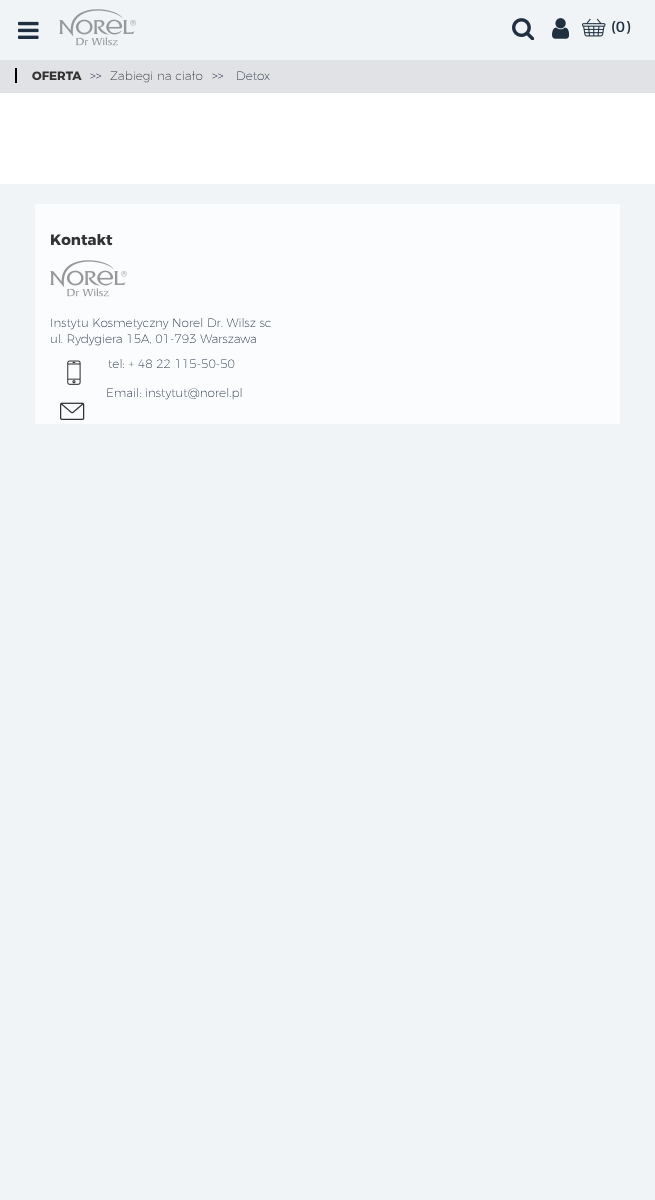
async function draw(canvas) {
  canvas.width = 655;
  canvas.height = 1200;
  const ctx = canvas.getContext('2d');
  ctx.miterLimit = 4;
  ctx.fontKerning = 'normal';
  function label(s, x, y, font, color) {
    ctx.font = font;
    ctx.fillStyle = color;
    ctx.fillText(s, x, y);
  }
  function rect(x, y, w, h, color) {
    ctx.fillStyle = color;
    ctx.fillRect(x, y, w, h);
  }
  async function image(src, x, y, w, h) {
    const img = new Image();
    img.src = src;
    await img.decode();
    ctx.drawImage(img, x, y, w, h);
  }

  rect(0, 0, 655, 1200, '#f0f4f7');
  await image('assets/img1.png', 18, 21, 21, 18);
  await image('assets/img2.png', 59, 9, 77, 37);
  await image('assets/img3.png', 512, 18, 22, 22);
  await image('assets/img4.png', 552, 18, 17, 21);
  await image('assets/img5.png', 582, 18, 24, 19);
  label('(0)', 611, 32, '15px Montserrat', '#203040');
  rect(0, 60, 655, 33, '#e1e2e6');
  label('OFERTA', 32, 80, 'bold 12px Montserrat', '#333');
  rect(15, 68, 2, 15, '#000');
  label('>>', 90, 80, '200 12px Montserrat', '#000028');
  label('Zabiegi na ciało', 110, 80, '200 12px Montserrat', '#333');
  label('>>', 212, 80, '200 12px Montserrat', '#000028');
  label('Detox', 236, 80, '200 12px Montserrat', '#203040');
  rect(0, 93, 655, 91, '#fff');
  rect(35, 204, 585, 220, '#fbfcfe');
  label('Kontakt', 50, 245, 'bold 15px Montserrat', '#333');
  await image('assets/img6.png', 50, 260, 77, 37);
  label('Instytu Kosmetyczny Norel Dr. Wilsz sc', 50, 327, '200 12px Montserrat', '#203040');
  label('ul. Rydygiera 15A, 01-793 Warszawa', 50, 343, '200 12px Montserrat', '#203040');
  await image('assets/img7.png', 67, 360, 14, 25);
  label('tel: + 48 22 115-50-50', 108, 368, '200 12px Montserrat', '#203040');
  label('Email: instytut@norel.pl', 106, 397, '200 12px Montserrat', '#203040');
  await image('assets/img8.png', 60, 402, 25, 18);
}

draw(document.querySelector('canvas'));
